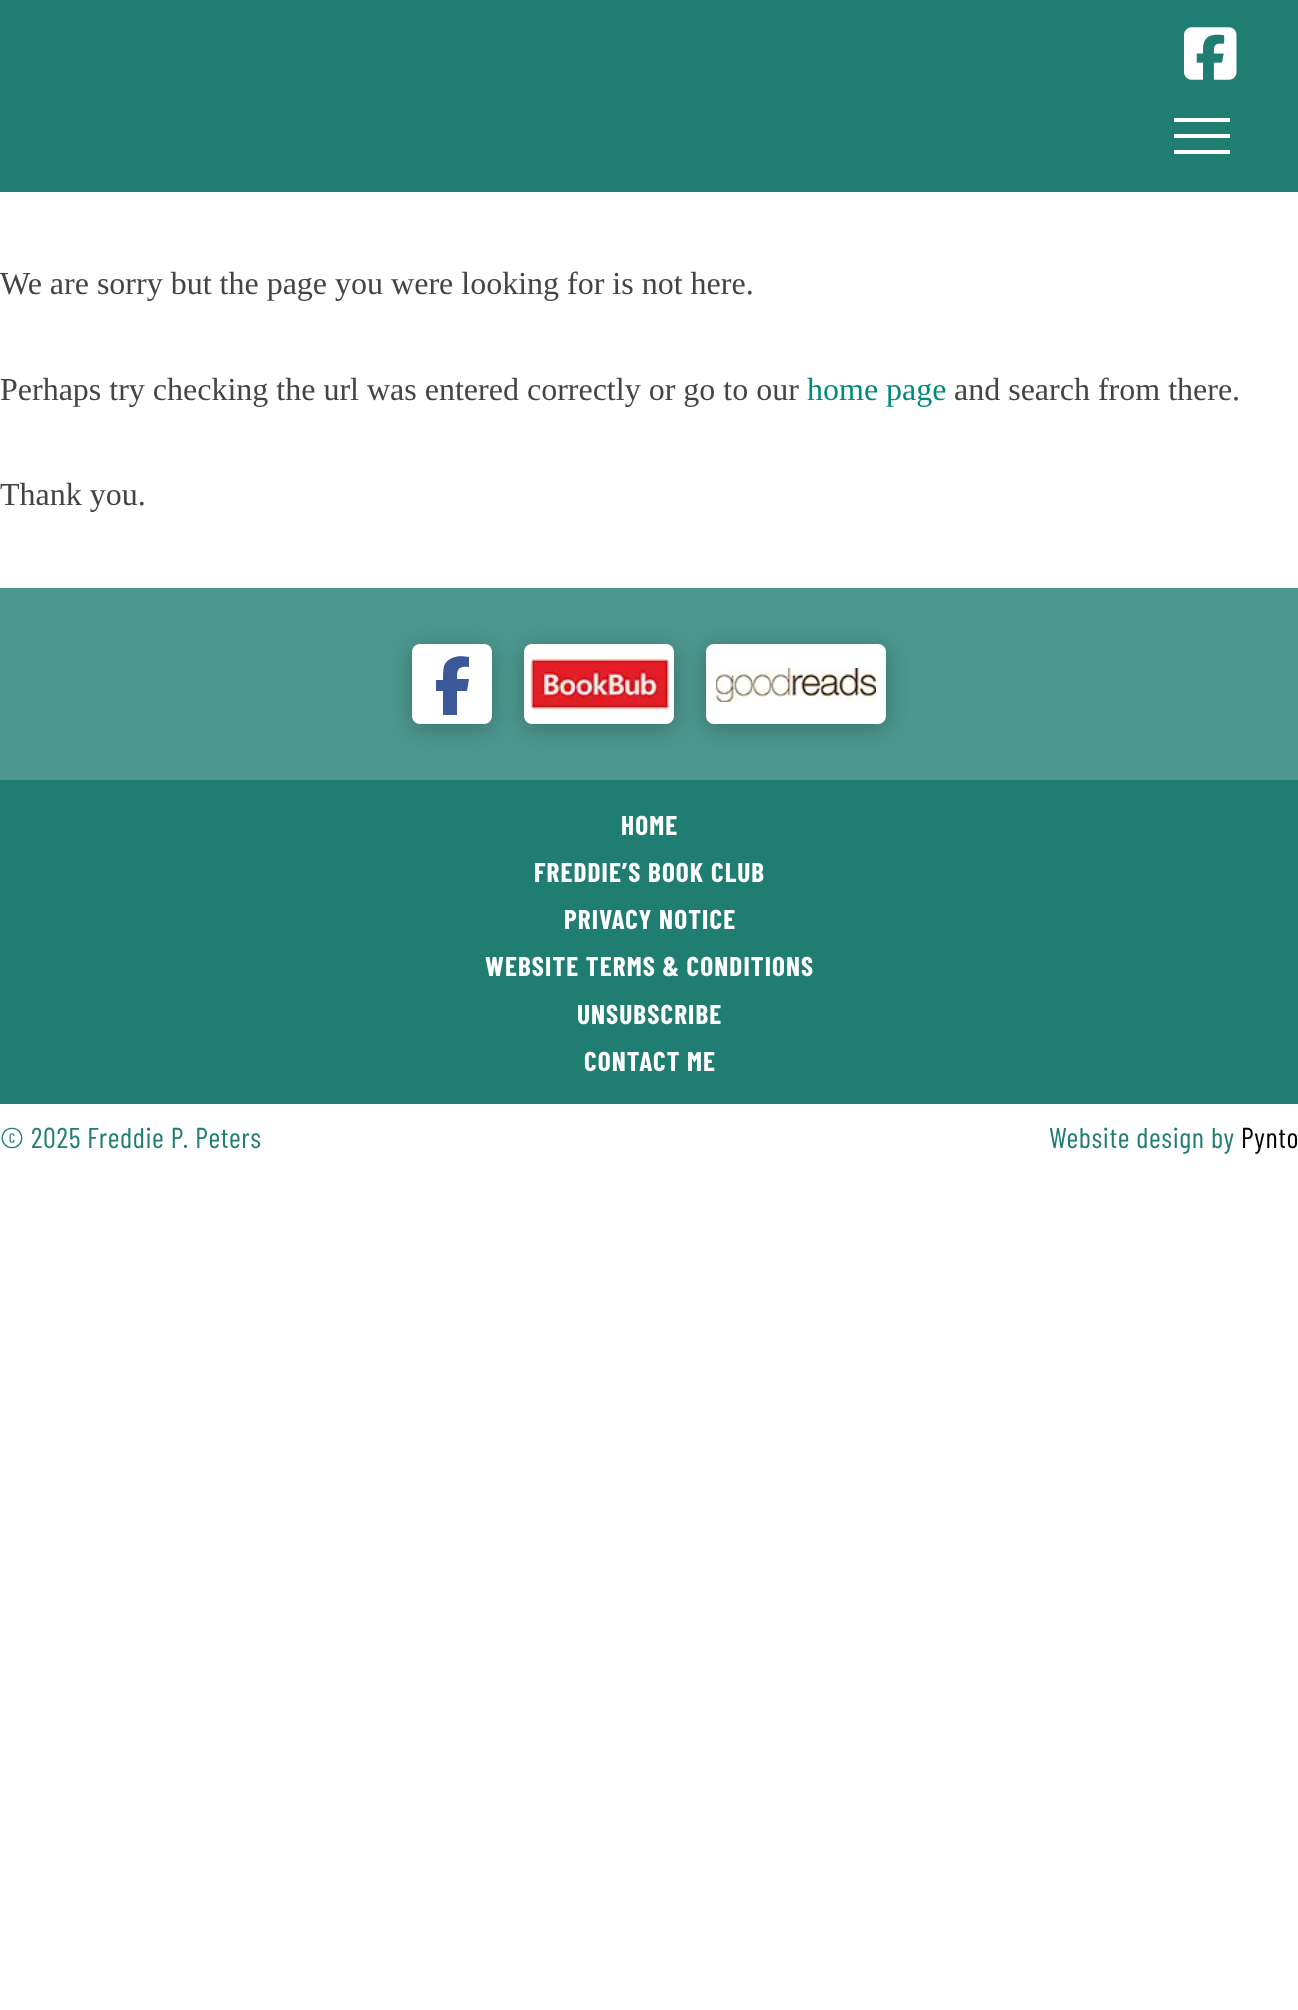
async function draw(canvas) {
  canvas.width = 1298;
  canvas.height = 2010;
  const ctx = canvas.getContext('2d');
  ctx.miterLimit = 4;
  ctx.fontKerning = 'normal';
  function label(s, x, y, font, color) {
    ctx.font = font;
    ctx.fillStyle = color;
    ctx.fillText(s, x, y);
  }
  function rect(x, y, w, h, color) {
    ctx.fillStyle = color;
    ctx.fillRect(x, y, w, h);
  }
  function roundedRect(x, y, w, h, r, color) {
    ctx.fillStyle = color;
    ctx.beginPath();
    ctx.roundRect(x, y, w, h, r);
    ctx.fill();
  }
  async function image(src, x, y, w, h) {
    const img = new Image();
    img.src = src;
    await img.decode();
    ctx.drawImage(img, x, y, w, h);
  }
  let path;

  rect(0, 0, 1298, 2010, '#fff');
  rect(0, 0, 1298, 192, '#1f7d71');
  await image('assets/img1.png', 1184, 27, 53, 53);
  rect(1174, 118, 56, 4, '#fff');
  rect(1174, 134, 56, 4, '#fff');
  rect(1174, 150, 56, 4, '#fff');
  label('We are sorry but the page you were looking for is not here.', 0, 294, '32px Liberation Serif', '#444');
  label('Perhaps try checking the url was entered correctly or go to our', 0, 400, '32px Liberation Serif', '#444');
  label('home page', 807, 400, '32px Liberation Serif', '#008a7b');
  label('and search from there.', 954, 400, '32px Liberation Serif', '#444');
  label('Thank you.', 0, 505, '32px Liberation Serif', '#444');
  rect(0, 588, 1298, 192, '#4c978e');
  ctx.fillStyle = '#00000040';
  ctx.filter = 'blur(10.5px)';
  ctx.beginPath();
  ctx.roundRect(412, 648, 80, 80, 8);
  ctx.fill();
  ctx.filter = 'none';
  roundedRect(412, 644, 80, 80, 8, '#fff');
  ctx.fillStyle = '#3b5998';
  path = new Path2D('M443 691V715V691V715H457V691H467L469 679H457C457 669 458 666 469 667V657C460 655 448 656 444 666C443 671 443 675 443 680H436V691Z');
  ctx.fill(path);
  ctx.fillStyle = '#00000040';
  ctx.filter = 'blur(10.5px)';
  ctx.beginPath();
  ctx.roundRect(524, 648, 150, 80, 8);
  ctx.fill();
  ctx.filter = 'none';
  roundedRect(524, 644, 150, 80, 8, '#fff');
  await image('assets/img2.png', 530, 658, 140, 52);
  ctx.fillStyle = '#00000040';
  ctx.filter = 'blur(10.5px)';
  ctx.beginPath();
  ctx.roundRect(706, 648, 180, 80, 8);
  ctx.fill();
  ctx.filter = 'none';
  roundedRect(706, 644, 180, 80, 8, '#fff');
  await image('assets/img3.png', 716, 668, 160, 34);
  rect(0, 780, 1298, 324, '#1f7d71');
  ctx.letterSpacing = '1.1px';
  label('HOME', 621, 835, 'bold 27.25px Barlow Condensed', '#fff');
  label('FREDDIE’S BOOK CLUB', 534, 882, 'bold 27.25px Barlow Condensed', '#fff');
  label('PRIVACY NOTICE', 564, 929, 'bold 27.25px Barlow Condensed', '#fff');
  label('WEBSITE TERMS & CONDITIONS', 485, 976, 'bold 27.25px Barlow Condensed', '#fff');
  label('UNSUBSCRIBE', 577, 1024, 'bold 27.25px Barlow Condensed', '#fff');
  label('CONTACT ME', 584, 1071, 'bold 27.25px Barlow Condensed', '#fff');
  ctx.letterSpacing = '0.6px';
  label('© 2025 Freddie P. Peters', 0, 1148, '28.75px Barlow Condensed', '#1f7d71');
  label('Website design by', 1049, 1148, '28.75px Barlow Condensed', '#1f7d71');
  label('Pynto', 1241, 1148, '28.75px Barlow Condensed', '#000');
}

draw(document.querySelector('canvas'));
